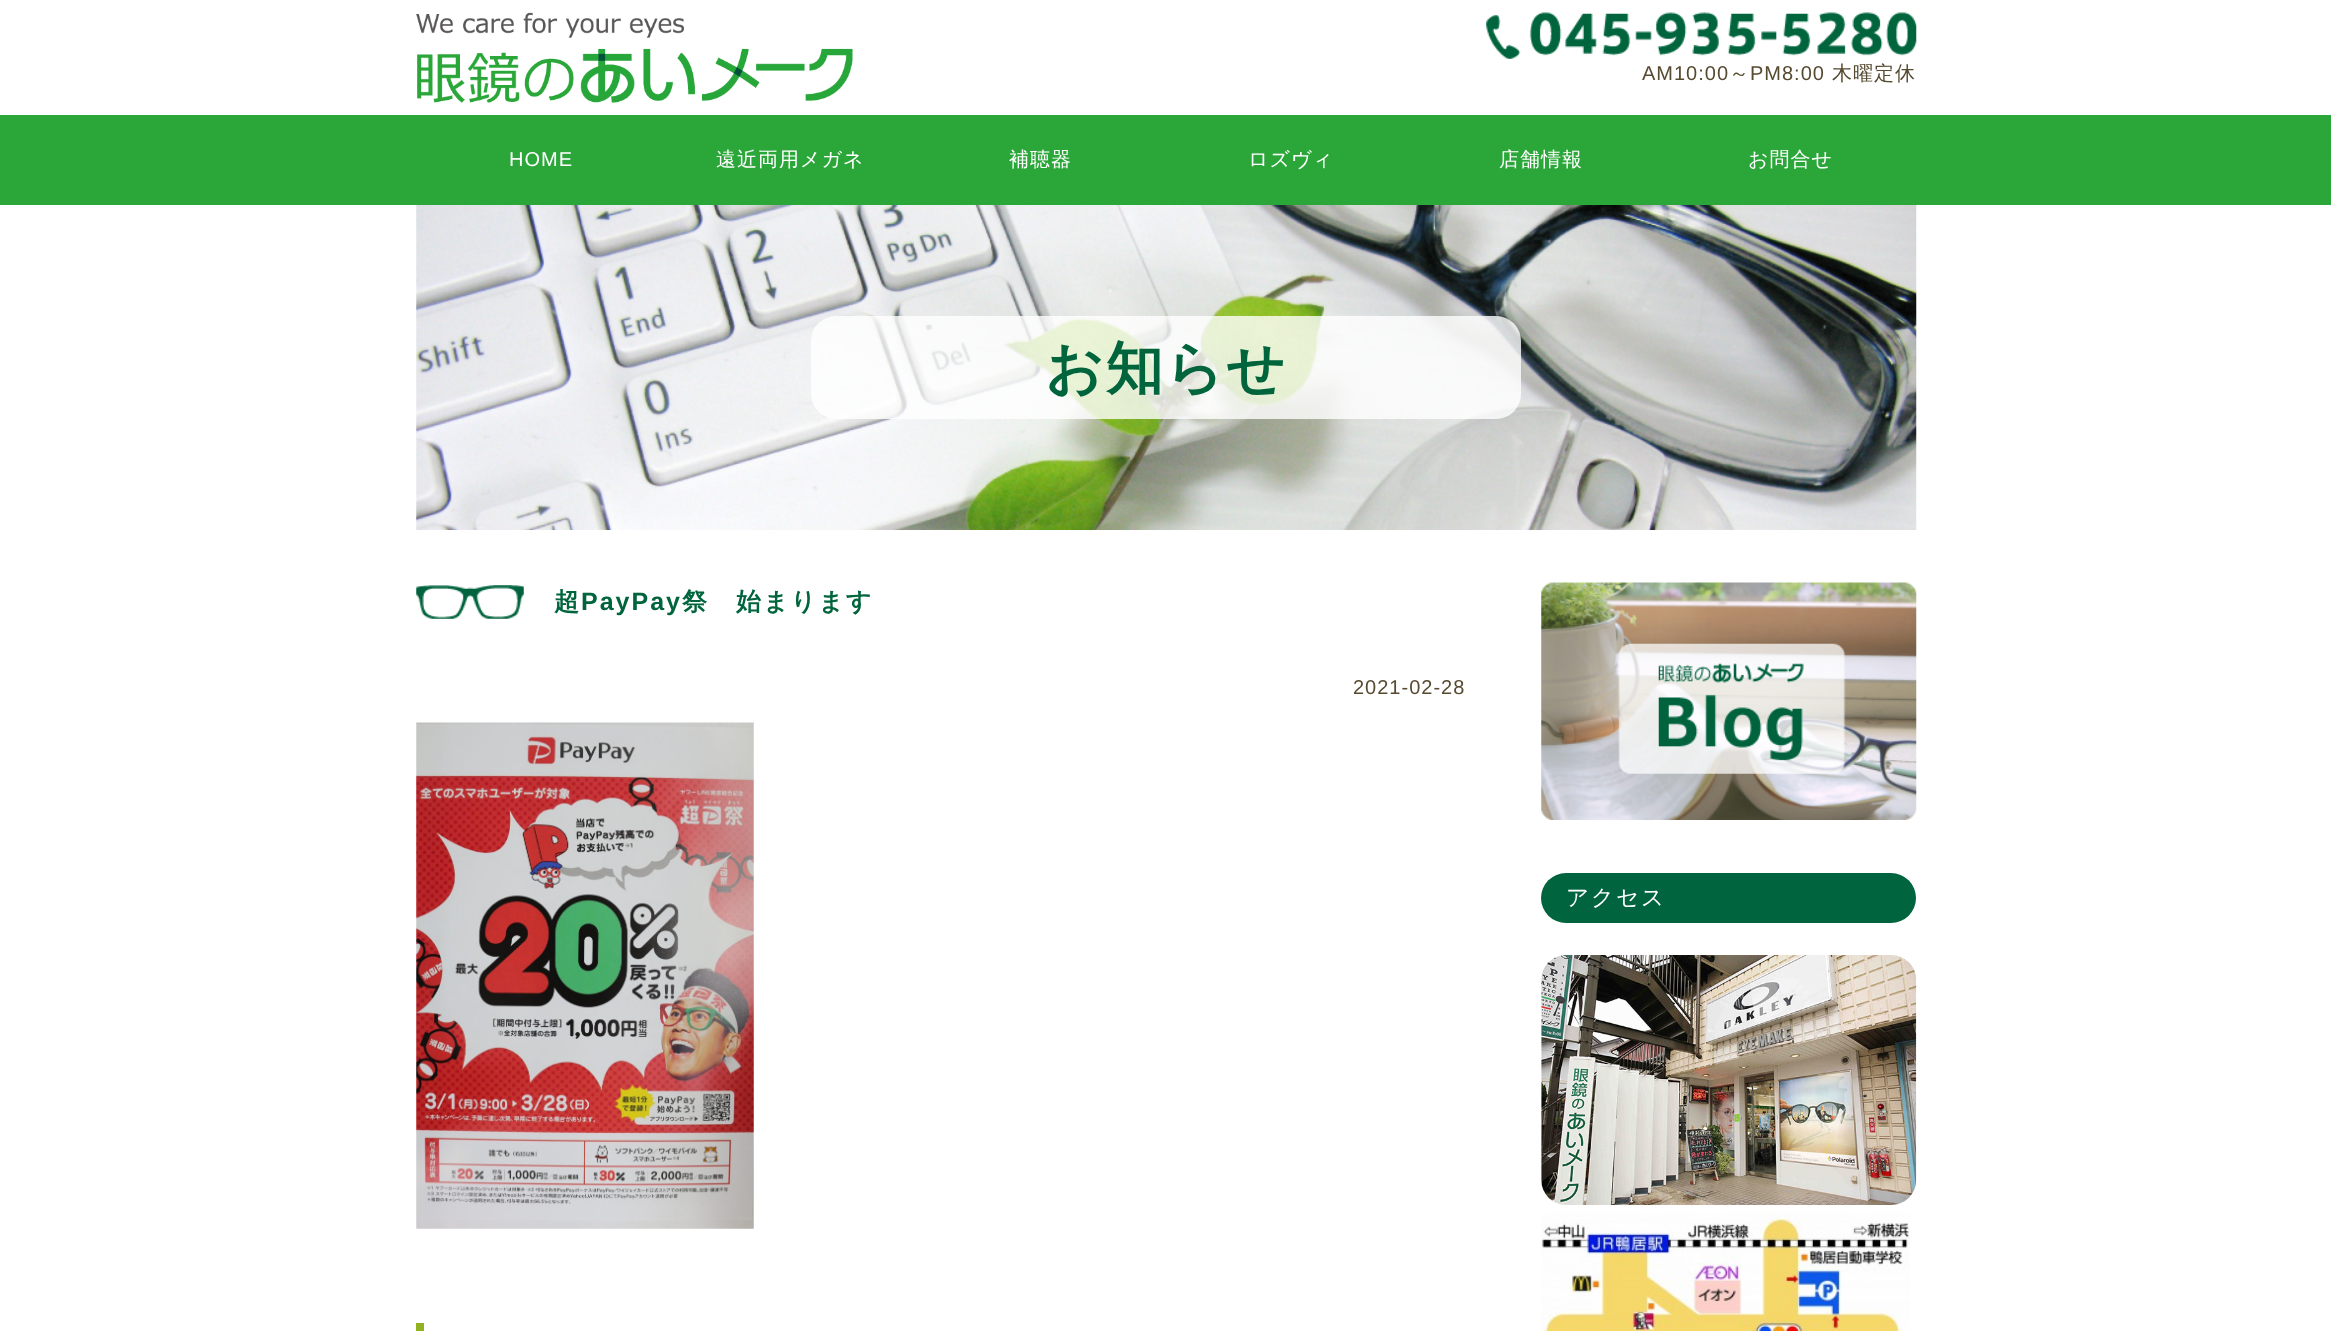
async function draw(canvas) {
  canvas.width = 2331;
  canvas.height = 1331;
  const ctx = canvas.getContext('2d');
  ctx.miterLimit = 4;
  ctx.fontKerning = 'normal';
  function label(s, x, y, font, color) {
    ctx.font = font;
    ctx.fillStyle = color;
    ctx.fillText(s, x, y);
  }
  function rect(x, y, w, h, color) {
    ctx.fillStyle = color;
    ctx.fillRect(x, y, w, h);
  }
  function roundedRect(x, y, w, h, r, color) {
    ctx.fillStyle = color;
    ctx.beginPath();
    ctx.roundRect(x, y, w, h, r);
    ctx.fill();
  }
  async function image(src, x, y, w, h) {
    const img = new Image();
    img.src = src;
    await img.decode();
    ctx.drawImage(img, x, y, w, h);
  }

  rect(0, 0, 2331, 1331, '#fff');
  await image('assets/img1.png', 416, 12, 437, 91);
  await image('assets/img2.png', 1486, 12, 431, 47);
  ctx.letterSpacing = '1px';
  label('AM10:00', 1642, 80, '20px Liberation Sans', '#564a30');
  label('～', 1729, 80, '500 20px WenQuanYi Zen Hei', '#564a30');
  label('PM8:00', 1750, 80, '20px Liberation Sans', '#564a30');
  label('木曜定休', 1832, 80, '500 20px WenQuanYi Zen Hei', '#564a30');
  rect(0, 115, 2331, 90, '#2ba739');
  label('HOME', 509, 166, '20px Liberation Sans', '#fff');
  label('遠近両用メガネ', 716, 166, '500 20px WenQuanYi Zen Hei', '#fff');
  label('補聴器', 1009, 166, '500 20px WenQuanYi Zen Hei', '#fff');
  label('ロズヴィ', 1248, 166, '500 20px WenQuanYi Zen Hei', '#fff');
  label('店舗情報', 1499, 166, '500 20px WenQuanYi Zen Hei', '#fff');
  label('お問合せ', 1748, 166, '500 20px WenQuanYi Zen Hei', '#fff');
  await image('assets/img3.png', 416, 205, 1501, 325);
  roundedRect(811, 316, 710, 103, 25, '#ffffffcc');
  ctx.letterSpacing = '2px';
  label('お知らせ', 1045, 388, 'bold 57.5px WenQuanYi Zen Hei', '#00653d');
  await image('assets/img4.png', 416, 585, 108, 34);
  label('超', 554, 610, 'bold 25px WenQuanYi Zen Hei', '#00653d');
  label('PayPay', 581, 610, 'bold 25px Liberation Sans', '#00653d');
  label('祭　始まります', 682, 610, 'bold 25px WenQuanYi Zen Hei', '#00653d');
  ctx.letterSpacing = '1px';
  label('2021-02-28', 1353, 694, '20px Liberation Sans', '#564a30');
  await image('assets/img5.png', 416, 722, 338, 507);
  rect(416, 1323, 8, 8, '#92b223');
  await image('assets/img6.png', 1541, 582, 376, 238);
  roundedRect(1541, 873, 375, 50, 25, '#00643e');
  ctx.letterSpacing = '2px';
  label('アクセス', 1566, 905, '500 22.5px WenQuanYi Zen Hei', '#fff');
  await image('assets/img7.png', 1541, 955, 376, 250);
  await image('assets/img8.png', 1541, 1212, 369, 119);
}

draw(document.querySelector('canvas'));
